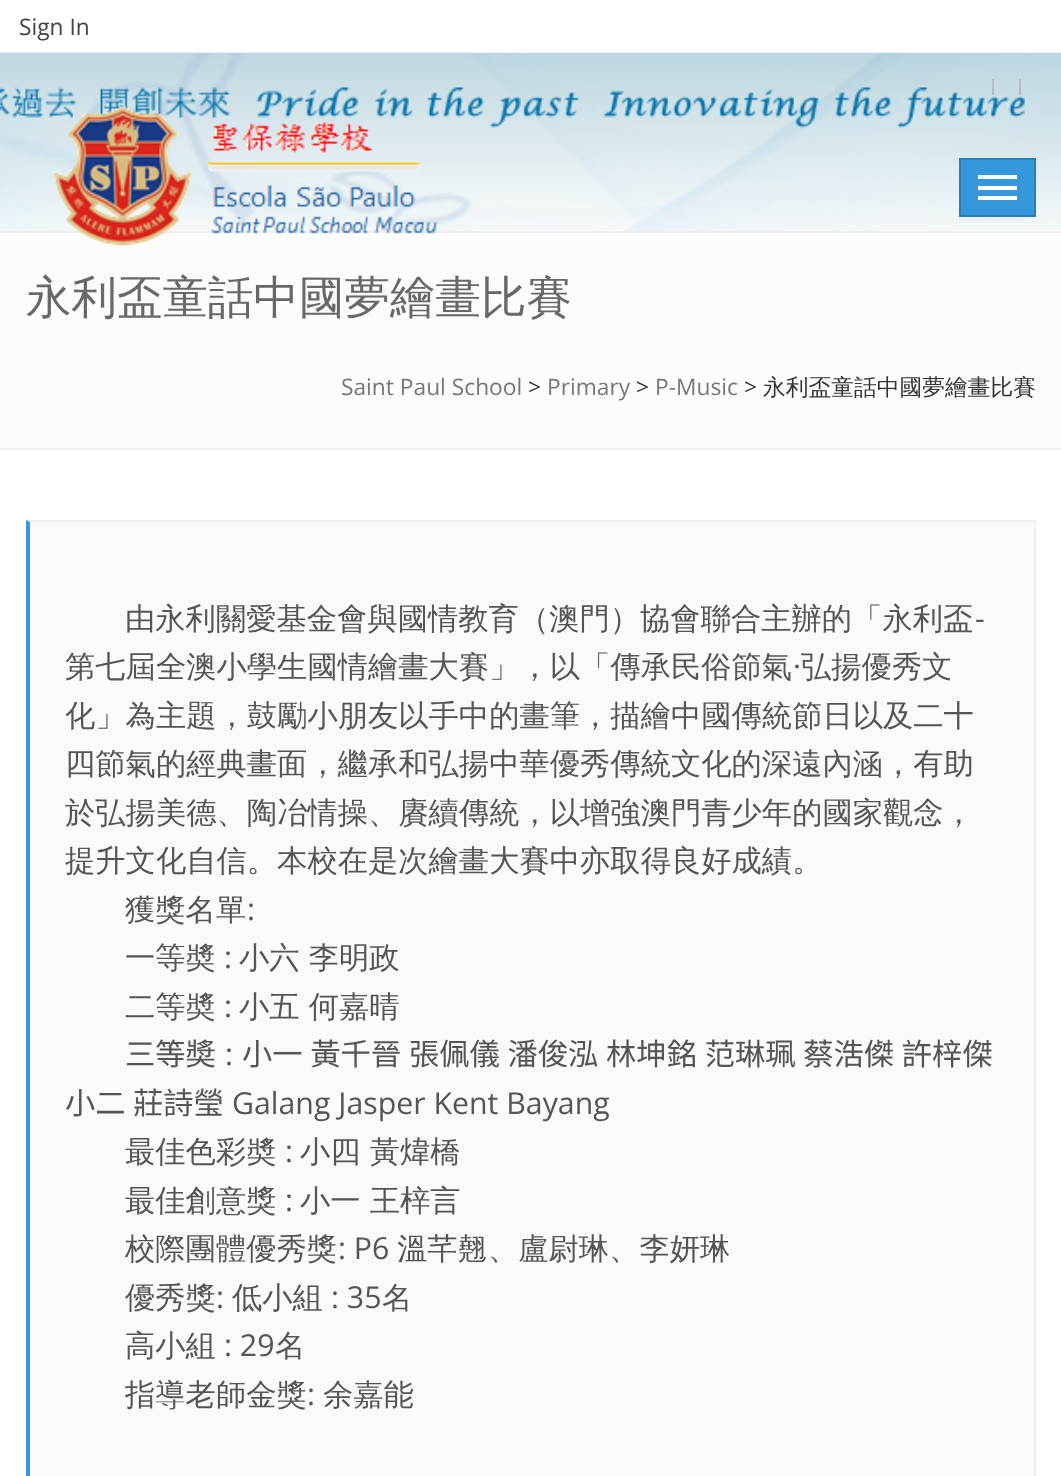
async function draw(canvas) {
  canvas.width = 1061;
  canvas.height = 1476;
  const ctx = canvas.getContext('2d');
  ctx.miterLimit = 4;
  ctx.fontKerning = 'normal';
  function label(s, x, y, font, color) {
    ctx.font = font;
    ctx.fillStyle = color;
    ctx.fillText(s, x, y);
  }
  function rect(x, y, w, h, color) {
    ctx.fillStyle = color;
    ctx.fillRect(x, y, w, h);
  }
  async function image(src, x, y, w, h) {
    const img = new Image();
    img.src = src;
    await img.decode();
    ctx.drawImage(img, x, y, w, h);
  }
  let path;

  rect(0, 0, 1061, 1476, '#fff');
  label('Sign In', 19, 35, '22.75px Open Sans', '#444');
  await image('assets/img1.png', 0, 52, 1061, 179);
  await image('assets/img2.png', 0, 87, 1025, 42);
  rect(992, 79, 2, 16, '#bbb');
  rect(1019, 79, 2, 16, '#bbb');
  rect(0, 233, 1061, 215, '#fcfcfc');
  rect(0, 231, 1061, 2, '#eee');
  await image('assets/img3.png', 53, 106, 385, 140);
  ctx.fillStyle = '#3498db';
  ctx.beginPath();
  ctx.rect(960, 159, 75, 57);
  ctx.fill();
  ctx.strokeStyle = '#2980b9';
  ctx.lineWidth = 2;
  ctx.stroke();
  rect(978, 175, 39, 4, '#fff');
  rect(978, 186, 39, 4, '#fff');
  rect(978, 196, 39, 4, '#fff');
  rect(0, 448, 1061, 2, '#eee');
  label('永利盃童話中國夢繪畫比賽', 26, 313, '500 45.5px WenQuanYi Zen Hei', '#686868');
  label('Saint Paul School', 341, 395, '22.75px Open Sans', '#777');
  label('>', 528, 395, '22.75px Open Sans', '#333');
  label('Primary', 547, 395, '22.75px Open Sans', '#777');
  label('>', 636, 395, '22.75px Open Sans', '#333');
  label('P-Music', 655, 395, '22.75px Open Sans', '#777');
  label('>', 744, 395, '22.75px Open Sans', '#333');
  label('永利盃童話中國夢繪畫比賽', 763, 395, '500 22.75px WenQuanYi Zen Hei', '#333');
  rect(30, 522, 1004, 954, '#fafafa');
  ctx.fillStyle = '#eee';
  path = new Path2D('M26 520H1036L1034 522H30Z');
  ctx.fill(path);
  rect(1034, 520, 2, 956, '#eee');
  ctx.fillStyle = '#3498db';
  path = new Path2D('M26 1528V520L30 522V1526Z');
  ctx.fill(path);
  label('由永利關愛基金會與國情教育（澳門）協會聯合主辦的「永利盃', 125, 629, '500 30.3px WenQuanYi Zen Hei', '#555');
  label('-', 975, 629, '30.3px Open Sans', '#555');
  label('第七屆全澳小學生國情繪畫大賽」，以「傳承民俗節氣', 65, 677, '500 30.3px WenQuanYi Zen Hei', '#555');
  label('·', 793, 677, '30.3px Open Sans', '#555');
  label('弘揚優秀文', 801, 677, '500 30.3px WenQuanYi Zen Hei', '#555');
  label('化」為主題，鼓勵小朋友以手中的畫筆，描繪中國傳統節日以及二十', 65, 726, '500 30.3px WenQuanYi Zen Hei', '#555');
  label('四節氣的經典畫面，繼承和弘揚中華優秀傳統文化的深遠內涵，有助', 65, 774, '500 30.3px WenQuanYi Zen Hei', '#555');
  label('於弘揚美德、陶冶情操、賡續傳統，以增強澳門青少年的國家觀念，', 65, 823, '500 30.3px WenQuanYi Zen Hei', '#555');
  label('提升文化自信。本校在是次繪畫大賽中亦取得良好成績。', 65, 871, '500 30.3px WenQuanYi Zen Hei', '#555');
  label('獲獎名單', 125, 920, '500 30.3px WenQuanYi Zen Hei', '#555');
  label(':', 247, 920, '30.3px Open Sans', '#555');
  label('一等奬', 125, 968, '500 30.3px WenQuanYi Zen Hei', '#555');
  label(':', 224, 968, '30.3px Open Sans', '#555');
  label('小六 李明政', 239, 968, '500 30.3px WenQuanYi Zen Hei', '#555');
  label('二等奬', 125, 1017, '500 30.3px WenQuanYi Zen Hei', '#555');
  label(':', 224, 1017, '30.3px Open Sans', '#555');
  label('小五 何嘉晴', 239, 1017, '500 30.3px WenQuanYi Zen Hei', '#555');
  label('三等奬', 125, 1065, '30.3px Chiron Hei HK', '#555');
  label(':', 225, 1065, '30.3px Open Sans', '#555');
  ctx.wordSpacing = '1px';
  label('小一 黃千晉 張佩儀 潘俊泓 林坤銘 范琳珮 蔡浩𠎀 許梓傑', 242, 1065, '30.3px Chiron Hei HK', '#555');
  ctx.wordSpacing = '0px';
  label('小二', 65, 1114, '30.3px Chiron Hei HK', '#555');
  label('莊詩瑩', 133, 1114, '30.3px Chiron Hei HK', '#555');
  label('Galang Jasper Kent Bayang', 232, 1114, '30.3px Open Sans', '#555');
  label('最佳色彩奬', 125, 1162, '500 30.3px WenQuanYi Zen Hei', '#555');
  label(':', 285, 1162, '30.3px Open Sans', '#555');
  label('小四 黃煒橋', 300, 1162, '500 30.3px WenQuanYi Zen Hei', '#555');
  label('最佳創意獎', 125, 1211, '500 30.3px WenQuanYi Zen Hei', '#555');
  label(':', 285, 1211, '30.3px Open Sans', '#555');
  label('小一 王梓言', 300, 1211, '500 30.3px WenQuanYi Zen Hei', '#555');
  label('校際團體優秀獎', 125, 1259, '500 30.3px WenQuanYi Zen Hei', '#555');
  label(': P6', 338, 1259, '30.3px Open Sans', '#555');
  label('溫芊翹、盧尉琳、李妍琳', 397, 1259, '500 30.3px WenQuanYi Zen Hei', '#555');
  label('優秀獎', 125, 1308, '500 30.3px WenQuanYi Zen Hei', '#555');
  label(':', 216, 1308, '30.3px Open Sans', '#555');
  label('低小組', 232, 1308, '500 30.3px WenQuanYi Zen Hei', '#555');
  label(': 35', 331, 1308, '30.3px Open Sans', '#555');
  label('名', 382, 1308, '500 30.3px WenQuanYi Zen Hei', '#555');
  label('高小組', 125, 1356, '500 30.3px WenQuanYi Zen Hei', '#555');
  label(': 29', 224, 1356, '30.3px Open Sans', '#555');
  label('名', 275, 1356, '500 30.3px WenQuanYi Zen Hei', '#555');
  label('指導老師金獎', 125, 1405, '500 30.3px WenQuanYi Zen Hei', '#555');
  label(':', 307, 1405, '30.3px Open Sans', '#555');
  label('余嘉能', 323, 1405, '500 30.3px WenQuanYi Zen Hei', '#555');
}

draw(document.querySelector('canvas'));
